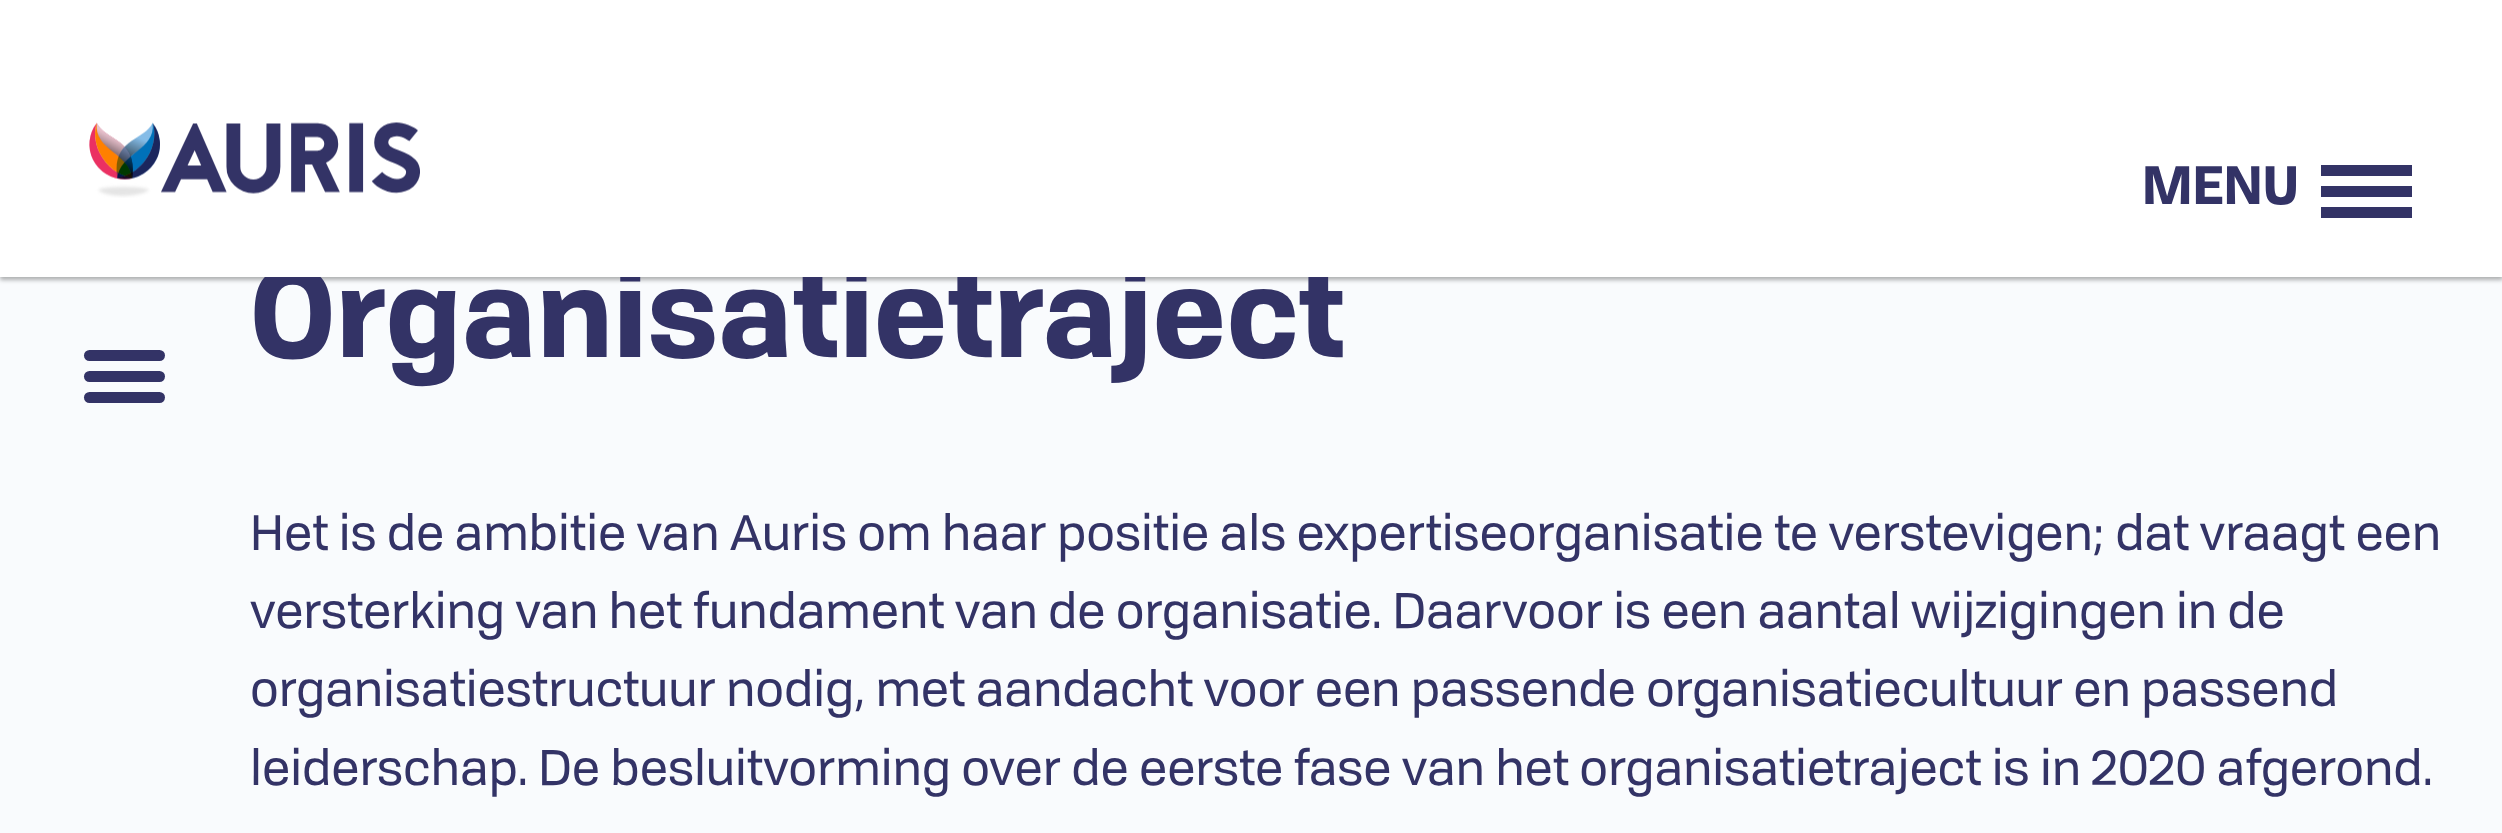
async function draw(canvas) {
  canvas.width = 2502;
  canvas.height = 833;
  const ctx = canvas.getContext('2d');
  ctx.miterLimit = 4;
  ctx.fontKerning = 'normal';
  function label(s, x, y, font, color) {
    ctx.font = font;
    ctx.fillStyle = color;
    ctx.fillText(s, x, y);
  }
  function rect(x, y, w, h, color) {
    ctx.fillStyle = color;
    ctx.fillRect(x, y, w, h);
  }
  function roundedRect(x, y, w, h, r, color) {
    ctx.fillStyle = color;
    ctx.beginPath();
    ctx.roundRect(x, y, w, h, r);
    ctx.fill();
  }
  async function image(src, x, y, w, h) {
    const img = new Image();
    img.src = src;
    await img.decode();
    ctx.drawImage(img, x, y, w, h);
  }

  rect(0, 0, 2502, 833, '#f9fbfd');
  ctx.fillStyle = '#0000004d';
  ctx.filter = 'blur(2px)';
  ctx.beginPath();
  ctx.rect(0, 4, 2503, 276);
  ctx.fill();
  ctx.filter = 'none';
  label('Organisatietraject', 250, 357, 'bold 121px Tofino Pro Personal', '#336');
  rect(0, 0, 2502, 277, '#fff');
  await image('assets/img1.png', 89, 122, 331, 76);
  label('MENU', 2142, 204, 'bold 52.5px Tofino Pro Personal', '#336');
  rect(2321, 165, 91, 11, '#336');
  rect(2321, 186, 91, 11, '#336');
  rect(2321, 207, 91, 11, '#336');
  roundedRect(84, 350, 81, 11, 5.5, '#336');
  roundedRect(84, 371, 81, 11, 5.5, '#336');
  roundedRect(84, 392, 81, 11, 5.5, '#336');
  label('Het is de ambitie van Auris om haar positie als expertiseorganisatie te verstevigen; dat vraagt een', 250, 550, '49px Tofino Pro Personal', '#336');
  label('versterking van het fundament van de organisatie. Daarvoor is een aantal wijzigingen in de', 250, 628, '49px Tofino Pro Personal', '#336');
  label('organisatiestructuur nodig, met aandacht voor een passende organisatiecultuur en passend', 250, 706, '49px Tofino Pro Personal', '#336');
  label('leiderschap. De besluitvorming over de eerste fase van het organisatietraject is in 2020 afgerond.', 250, 785, '49px Tofino Pro Personal', '#336');
}

draw(document.querySelector('canvas'));
